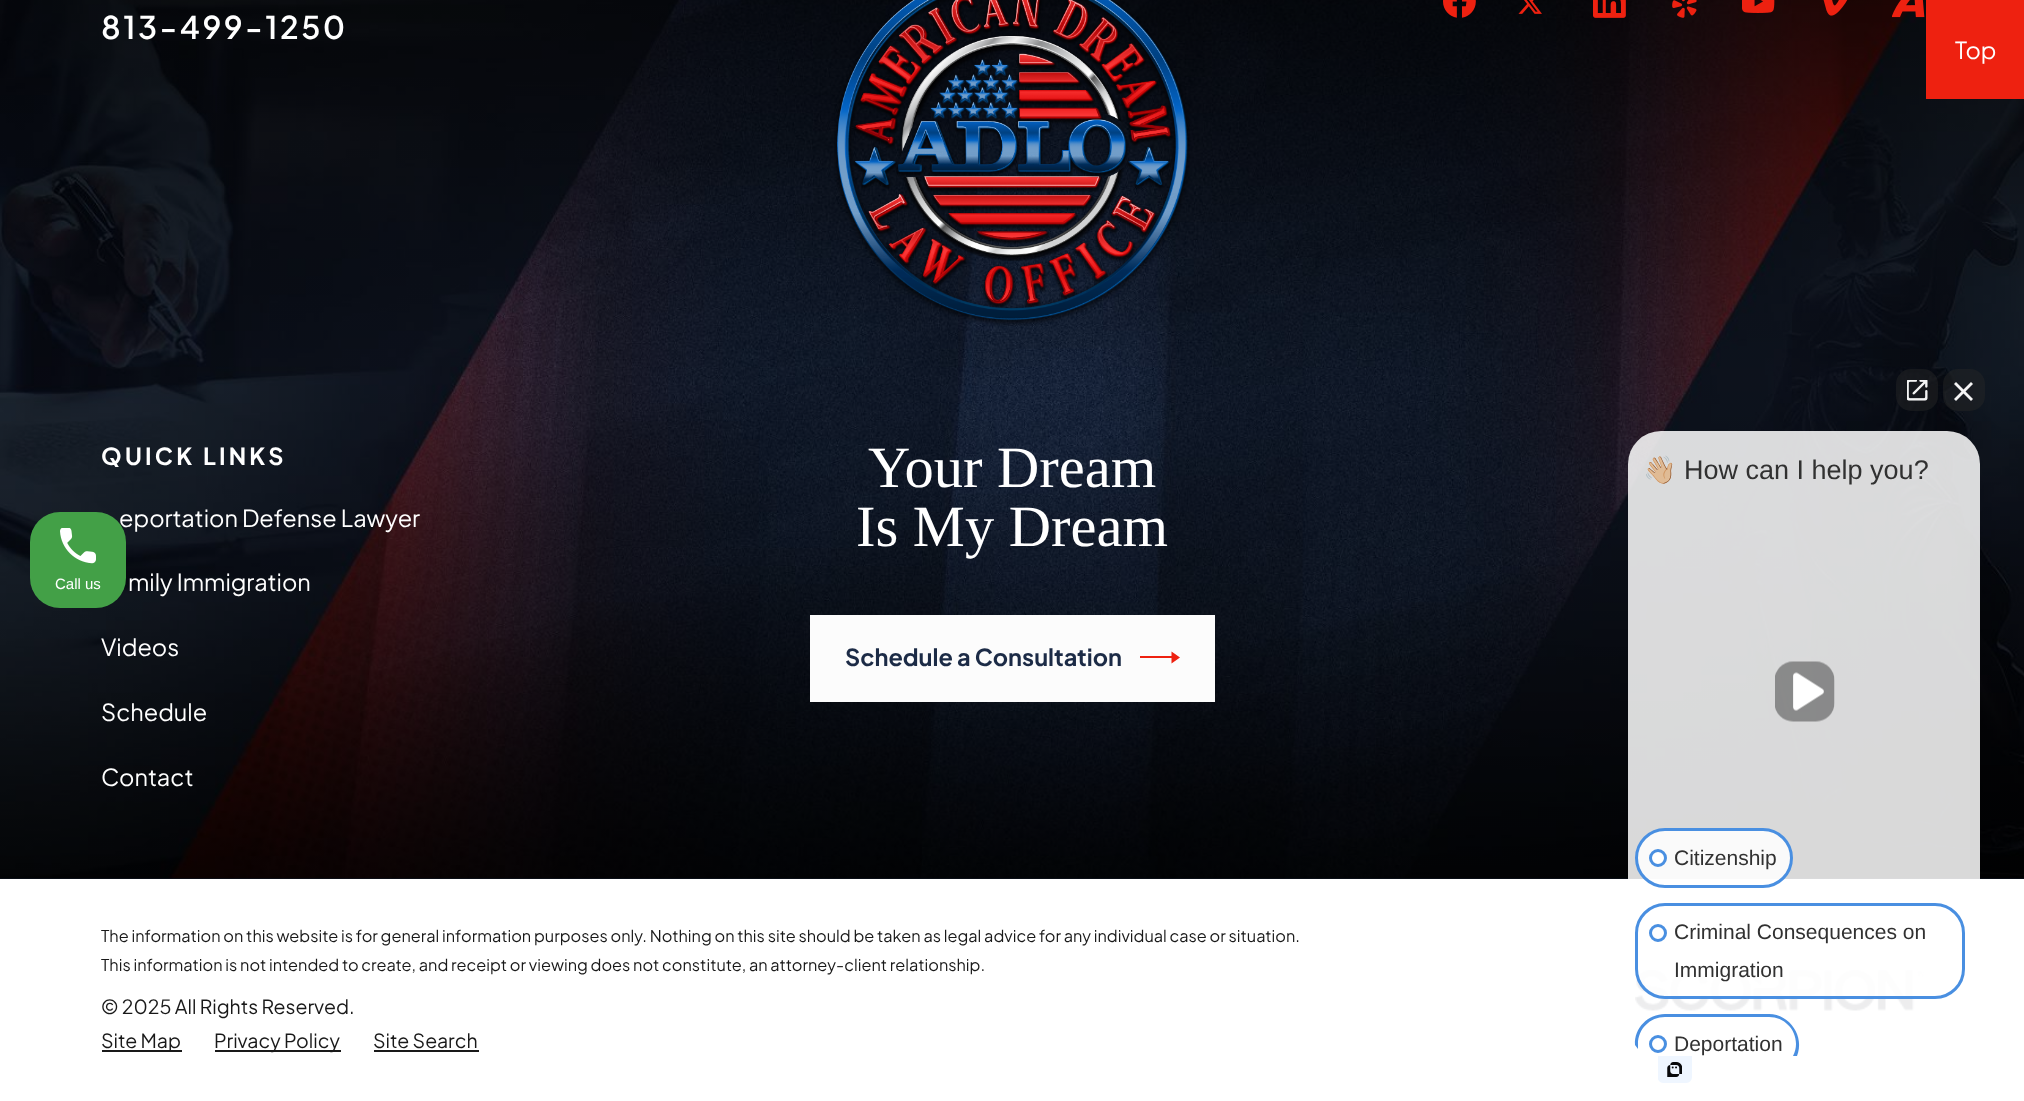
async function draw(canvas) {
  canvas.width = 2024;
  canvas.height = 1101;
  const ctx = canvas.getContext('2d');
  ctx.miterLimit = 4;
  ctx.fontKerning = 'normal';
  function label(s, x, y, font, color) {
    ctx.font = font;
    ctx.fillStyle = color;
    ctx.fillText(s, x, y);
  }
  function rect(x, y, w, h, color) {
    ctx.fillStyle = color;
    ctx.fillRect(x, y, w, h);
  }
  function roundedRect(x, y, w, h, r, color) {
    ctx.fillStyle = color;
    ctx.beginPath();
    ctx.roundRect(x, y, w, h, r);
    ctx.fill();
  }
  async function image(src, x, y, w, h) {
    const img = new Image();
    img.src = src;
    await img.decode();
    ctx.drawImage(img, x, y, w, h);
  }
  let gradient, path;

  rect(0, 0, 2024, 1101, '#fff');
  rect(0, 878, 2024, 1, '#1c2b46');
  await image('assets/img1.png', 0, 0, 2024, 879);
  gradient = ctx.createLinearGradient(1013, 879, 1013, -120);
  gradient.addColorStop(0, '#00000099');
  gradient.addColorStop(0.5, '#00000066');
  gradient.addColorStop(1, '#00000099');
  ctx.fillStyle = gradient;
  ctx.fillRect(0, 0, 2024, 879);
  await image('assets/img2.png', 834, 0, 356, 326);
  await image('assets/img3.png', 1443, 0, 33, 18);
  await image('assets/img4.png', 1518, 0, 24, 14);
  await image('assets/img5.png', 1593, 0, 33, 18);
  await image('assets/img6.png', 1672, 0, 25, 18);
  await image('assets/img7.png', 1742, 0, 33, 13);
  await image('assets/img8.png', 1823, 0, 25, 16);
  await image('assets/img9.png', 1892, 0, 33, 18);
  ctx.letterSpacing = '2.5px';
  label('813-499-1250', 101, 39, '600 31.25px Plus Jakarta Sans', '#fff');
  ctx.letterSpacing = '3.25px';
  label('QUICK LINKS', 101, 465, 'bold 23.5px Plus Jakarta Sans', '#fff');
  ctx.letterSpacing = '0px';
  label('eportation Defense Lawyer', 119, 527, '23.5px Plus Jakarta Sans', '#fff');
  label('mily Immigration', 128, 591, '23.5px Plus Jakarta Sans', '#fff');
  label('Videos', 101, 656, '23.5px Plus Jakarta Sans', '#fff');
  label('Schedule', 101, 721, '23.5px Plus Jakarta Sans', '#fff');
  label('Contact', 101, 786, '23.5px Plus Jakarta Sans', '#fff');
  label('Your Dream', 868, 487, '58.5px Liberation Serif', '#fff');
  label('Is My Dream', 856, 546, '58.5px Liberation Serif', '#fff');
  rect(810, 615, 405, 87, '#fcfcfc');
  label('Schedule a Consultation', 845, 666, 'bold 23.5px Plus Jakarta Sans', '#1c2b46');
  ctx.fillStyle = '#ee2110';
  path = new Path2D('M1171.5 651.5V656H1140V658H1171.5V663.5L1180 657.5Z');
  ctx.fill(path);
  label('The information on this website is for general information purposes only. Nothing on this site should be taken as legal advice for any individual case or situation.', 101, 942, '16.3px Plus Jakarta Sans', '#191919');
  label('This information is not intended to create, and receipt or viewing does not constitute, an attorney-client relationship.', 101, 971, '16.3px Plus Jakarta Sans', '#191919');
  label('© 2025 All Rights Reserved.', 101, 1014, '19.5px Plus Jakarta Sans', '#191919');
  rect(102, 1050, 80, 2, '#191919');
  label('Site Map', 101, 1048, '19.5px Plus Jakarta Sans', '#191919');
  rect(215, 1050, 126, 2, '#191919');
  label('Privacy Policy', 214, 1048, '19.5px Plus Jakarta Sans', '#191919');
  label('Site Search', 373, 1048, '19.5px Plus Jakarta Sans', '#191919');
  rect(374, 1050, 105, 2, '#191919');
  await image('assets/img10.png', 1635, 970, 290, 41);
  rect(1926, 0, 98, 99, '#ee2110');
  label('Top', 1955, 59, '23.5px Plus Jakarta Sans', '#fff');
  roundedRect(30, 512, 96, 96, 30, '#43a047');
  await image('assets/img11.png', 60, 528, 36, 36);
  label('Call us', 55, 589, '15px Liberation Sans', '#fff');
  roundedRect(1628, 431, 352, 625, 33, '#ffffffd9');
  roundedRect(1896, 369, 42, 42, 15, '#27272773');
  await image('assets/img12.png', 1907, 380, 21, 21);
  roundedRect(1943, 369, 42, 42, 15, '#27272773');
  ctx.fillStyle = '#f5f5f5';
  path = new Path2D('M1954 384L1956 382L1973 399L1971 401Z');
  ctx.fill(path);
  path = new Path2D('M1971 382L1973 384L1956 401L1954 399Z');
  ctx.fill(path);
  label('👋🏼', 1643, 479, '27px Noto Color Emoji', '#313131');
  label('How can I help you?', 1684, 479, '27px Liberation Sans', '#313131');
  await image('assets/img13.png', 1775, 661, 60, 61);
  ctx.fillStyle = '#ffffffd9';
  ctx.beginPath();
  ctx.roundRect(1636.5, 829.5, 155, 57, 28.5);
  ctx.fill();
  ctx.strokeStyle = '#498fe1';
  ctx.lineWidth = 3;
  ctx.stroke();
  ctx.fillStyle = '#fff';
  ctx.beginPath();
  ctx.arc(1658, 858, 7.5, 0, 2 * Math.PI);
  ctx.fill();
  ctx.stroke();
  label('Citizenship', 1674, 865, '21px Liberation Sans', '#313131');
  ctx.fillStyle = '#ffffffd9';
  ctx.beginPath();
  ctx.roundRect(1636.5, 904.5, 327, 93, 28.5);
  ctx.fill();
  ctx.stroke();
  ctx.beginPath();
  ctx.arc(1658, 933, 7.5, 0, 2 * Math.PI);
  ctx.stroke();
  label('Criminal Consequences on', 1674, 939, '21px Liberation Sans', '#313131');
  label('Immigration', 1674, 977, '21px Liberation Sans', '#313131');
  ctx.fillStyle = '#498fe1';
  path = new Path2D('M1665 1014C1648 1014 1634 1028 1635 1045L1638 1049V1044C1638 1029 1650 1017 1665 1017H1769C1784 1017 1796 1029 1796 1044C1796 1048 1795 1052 1793 1056H1797C1805 1037 1790 1014 1769 1014Z');
  ctx.fill(path);
  ctx.beginPath();
  ctx.arc(1658, 1044, 7.5, 0, 2 * Math.PI);
  ctx.stroke();
  label('Deportation', 1674, 1051, '21px Liberation Sans', '#313131');
  await image('assets/img14.png', 1658, 1056, 34, 27);
}

draw(document.querySelector('canvas'));
